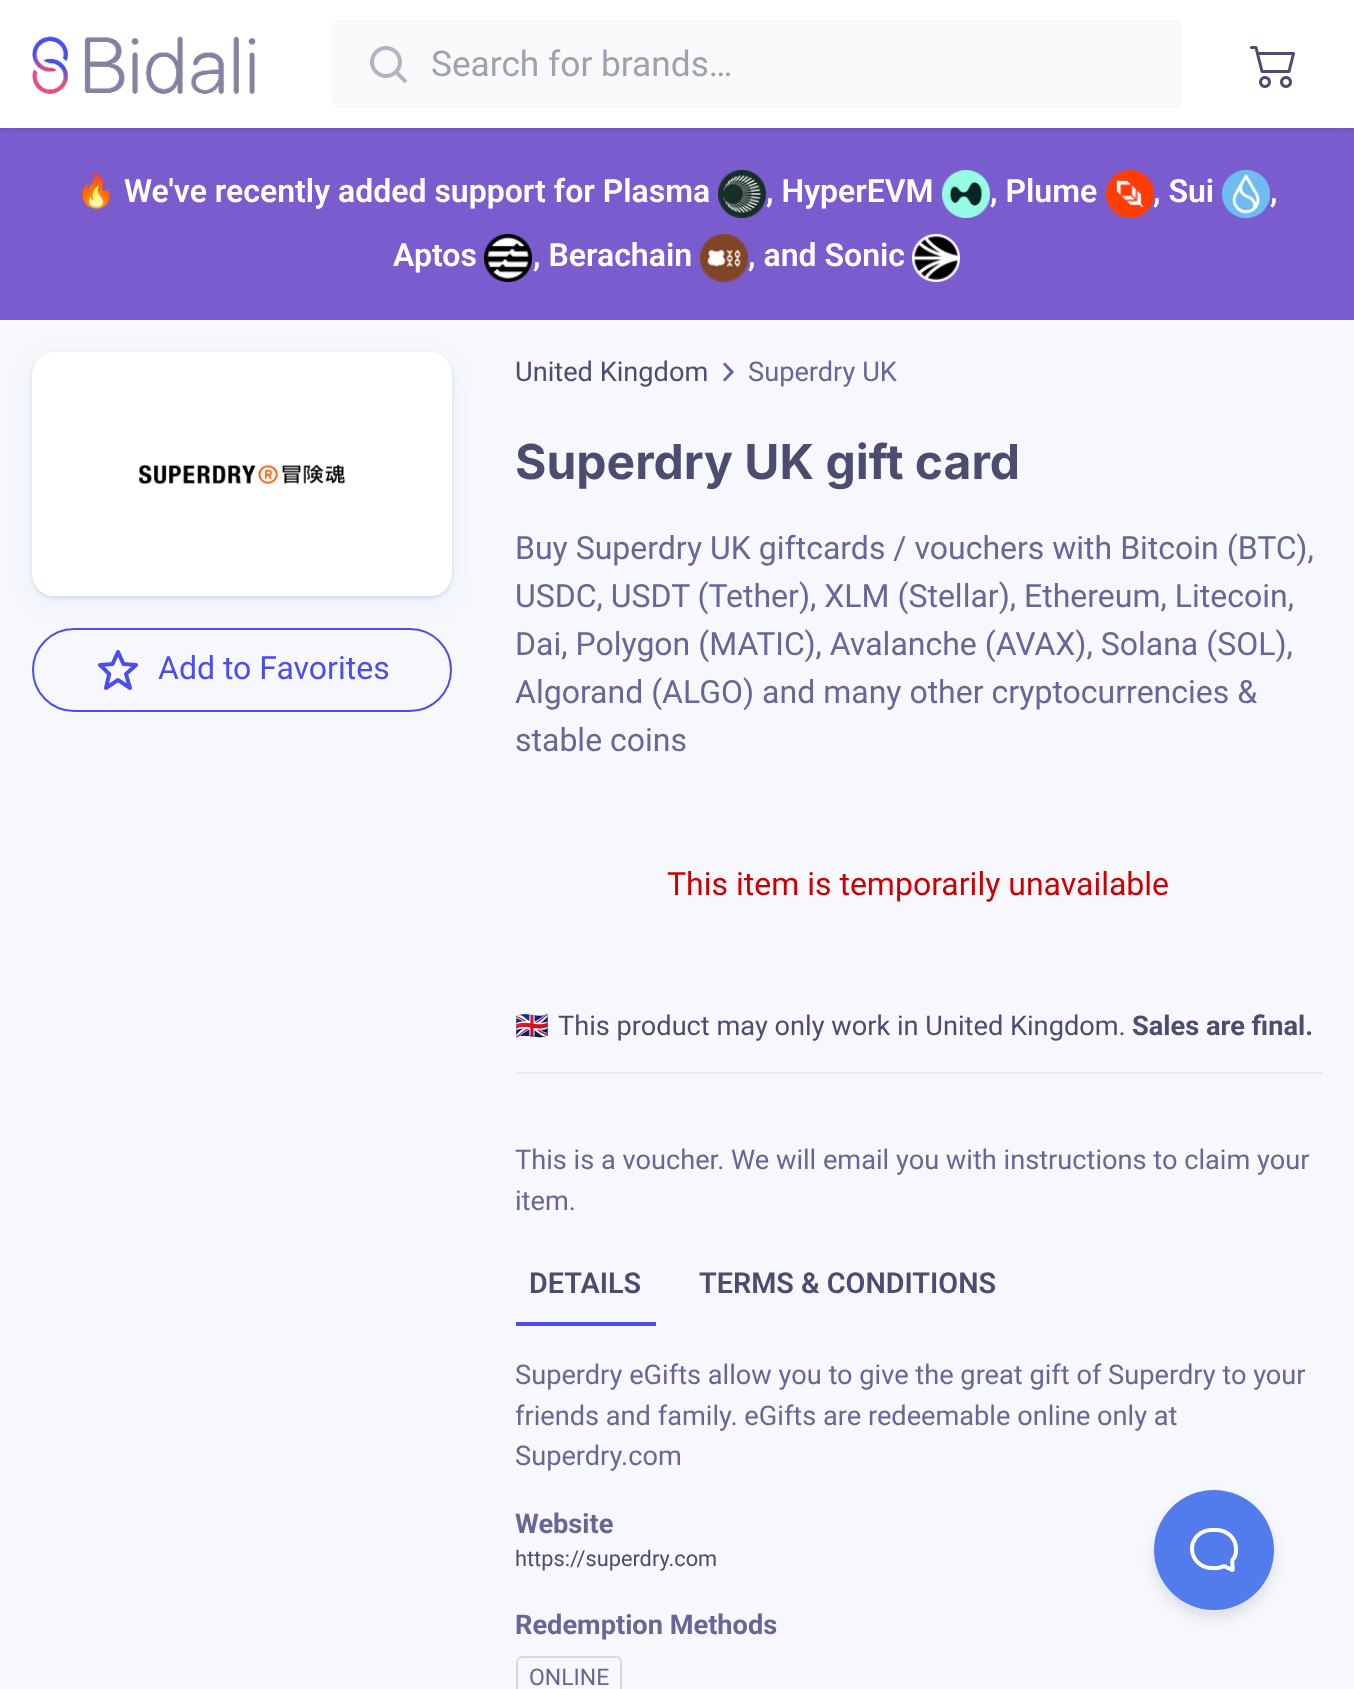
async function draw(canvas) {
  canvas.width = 1354;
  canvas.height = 1689;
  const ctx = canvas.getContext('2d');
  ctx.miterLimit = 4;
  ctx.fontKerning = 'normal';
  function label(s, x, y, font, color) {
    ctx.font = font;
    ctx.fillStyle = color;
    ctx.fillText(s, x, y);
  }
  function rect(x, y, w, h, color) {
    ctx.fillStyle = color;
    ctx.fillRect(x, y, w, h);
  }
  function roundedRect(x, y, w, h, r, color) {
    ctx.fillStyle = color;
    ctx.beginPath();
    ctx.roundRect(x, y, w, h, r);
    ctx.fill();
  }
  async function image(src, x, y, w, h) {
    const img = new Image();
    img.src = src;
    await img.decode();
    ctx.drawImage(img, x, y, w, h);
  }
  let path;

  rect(0, 0, 1354, 1689, '#f7f8fd');
  rect(0, 128, 1354, 192, '#7a5ccf');
  ctx.fillStyle = '#0000001a';
  ctx.filter = 'blur(2px)';
  ctx.beginPath();
  ctx.rect(0, 2, 1354, 128);
  ctx.fill();
  ctx.filter = 'none';
  await image('assets/img4.png', 718, 170, 48, 48);
  await image('assets/img5.png', 942, 170, 48, 48);
  await image('assets/img6.png', 1106, 170, 48, 48);
  await image('assets/img7.png', 1222, 170, 48, 48);
  ctx.fillStyle = '#4a90e214';
  ctx.filter = 'blur(12px)';
  ctx.beginPath();
  ctx.rect(0, 8, 1354, 128);
  ctx.fill();
  ctx.filter = 'none';
  rect(0, 0, 1354, 128, '#fff');
  await image('assets/img1.png', 32, 36, 224, 58);
  roundedRect(332, 20, 850, 88, 8, '#f9f9f9');
  await image('assets/img2.png', 370, 46, 38, 38);
  label('Search for brands…', 431, 76, '35.25px Roboto', '#9ca3af');
  await image('assets/img3.png', 1250, 46, 45, 42);
  label('🔥', 76, 202, 'bold 32px Noto Color Emoji', '#fff');
  label('We\'ve recently added support for Plasma', 124, 202, '600 32px Roboto', '#fff');
  label(', HyperEVM', 766, 202, '600 32px Roboto', '#fff');
  label(', Plume', 990, 202, '600 32px Roboto', '#fff');
  label(', Sui', 1153, 202, '600 32px Roboto', '#fff');
  label(',', 1270, 202, '600 32px Roboto', '#fff');
  label('Aptos', 393, 266, '600 32px Roboto', '#fff');
  await image('assets/img8.png', 484, 234, 48, 48);
  label(', Berachain', 533, 266, '600 32px Roboto', '#fff');
  await image('assets/img9.png', 700, 234, 48, 48);
  label(', and Sonic', 748, 266, '600 32px Roboto', '#fff');
  await image('assets/img10.png', 912, 234, 48, 48);
  ctx.fillStyle = '#0000001a';
  ctx.filter = 'blur(2px)';
  ctx.beginPath();
  ctx.roundRect(32, 354, 420, 244, 22);
  ctx.fill();
  ctx.filter = 'none';
  ctx.beginPath();
  ctx.roundRect(33, 629, 418, 82, 41);
  ctx.strokeStyle = '#4b4df1';
  ctx.lineWidth = 2;
  ctx.stroke();
  ctx.fillStyle = '#4a90e214';
  ctx.filter = 'blur(12px)';
  ctx.beginPath();
  ctx.roundRect(32, 360, 420, 244, 22);
  ctx.fill();
  ctx.filter = 'none';
  ctx.fillStyle = '#fff';
  path = new Path2D('M53 352H431C443 352 452 363 452 376V572C452 585 443 596 431 596H53C41 596 32 585 32 572V376C32 363 41 352 53 352Z');
  ctx.fill(path);
  await image('assets/img11.png', 139, 464, 206, 21);
  await image('assets/img12.png', 98, 650, 40, 40);
  label('Add to Favorites', 158, 679, '32px Roboto', '#4b4df1');
  label('United Kingdom', 515, 381, '27.2px Roboto', '#4c4c71');
  await image('assets/img13.png', 723, 362, 11, 20);
  label('Superdry UK', 748, 381, '27.2px Roboto', '#666697');
  label('Superdry UK gift card', 515, 479, 'bold 48px Inter', '#4c4c71');
  label('Buy Superdry UK giftcards / vouchers with Bitcoin (BTC),', 515, 559, '32px Roboto', '#666697');
  label('USDC, USDT (Tether), XLM (Stellar), Ethereum, Litecoin,', 515, 607, '32px Roboto', '#666697');
  label('Dai, Polygon (MATIC), Avalanche (AVAX), Solana (SOL),', 515, 655, '32px Roboto', '#666697');
  label('Algorand (ALGO) and many other cryptocurrencies &', 515, 703, '32px Roboto', '#666697');
  label('stable coins', 515, 751, '32px Roboto', '#666697');
  label('This item is temporarily unavailable', 667, 895, '32px Roboto', '#c00');
  label('🇬🇧', 515, 1035, '27.2px Noto Color Emoji', '#4c4c71');
  label('This product may only work in United Kingdom.', 558, 1035, '27.2px Roboto', '#4c4c71');
  label('Sales are final.', 1132, 1035, 'bold 27.2px Roboto', '#4c4c71');
  rect(516, 1072, 806, 2, '#ebecf0');
  label('This is a voucher. We will email you with instructions to claim your', 515, 1169, '27.2px Roboto', '#666697');
  label('item.', 515, 1210, '27.2px Roboto', '#666697');
  rect(516, 1322, 140, 4, '#4b4df1');
  label('DETAILS', 529, 1293, '600 28.75px Roboto', '#4c4c71');
  label('TERMS & CONDITIONS', 699, 1293, '600 28.75px Roboto', '#4c4c71');
  label('Superdry eGifts allow you to give the great gift of Superdry to your', 515, 1384, '27.2px Roboto', '#666697');
  label('friends and family. eGifts are redeemable online only at', 515, 1425, '27.2px Roboto', '#666697');
  label('Superdry.com', 515, 1465, '27.2px Roboto', '#666697');
  label('Website', 515, 1533, 'bold 27.2px Roboto', '#666697');
  label('https://superdry.com', 515, 1566, '21.75px Roboto', '#4c4c71');
  label('Redemption Methods', 515, 1634, 'bold 27.2px Roboto', '#666697');
  ctx.beginPath();
  ctx.roundRect(517, 1657, 104, 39, 5);
  ctx.strokeStyle = '#d8d9dd';
  ctx.stroke();
  label('ONLINE', 529, 1685, '23px Roboto', '#666697');
  ctx.fillStyle = '#0000001a';
  ctx.filter = 'blur(7px)';
  ctx.beginPath();
  ctx.roundRect(1154, 1498, 120, 120, 60);
  ctx.fill();
  ctx.filter = 'none';
  ctx.fillStyle = '#527ceb';
  ctx.beginPath();
  ctx.arc(1214, 1550, 60, 0, 2 * Math.PI);
  ctx.fill();
  await image('assets/img14.png', 1190, 1528, 48, 44);
}

draw(document.querySelector('canvas'));
